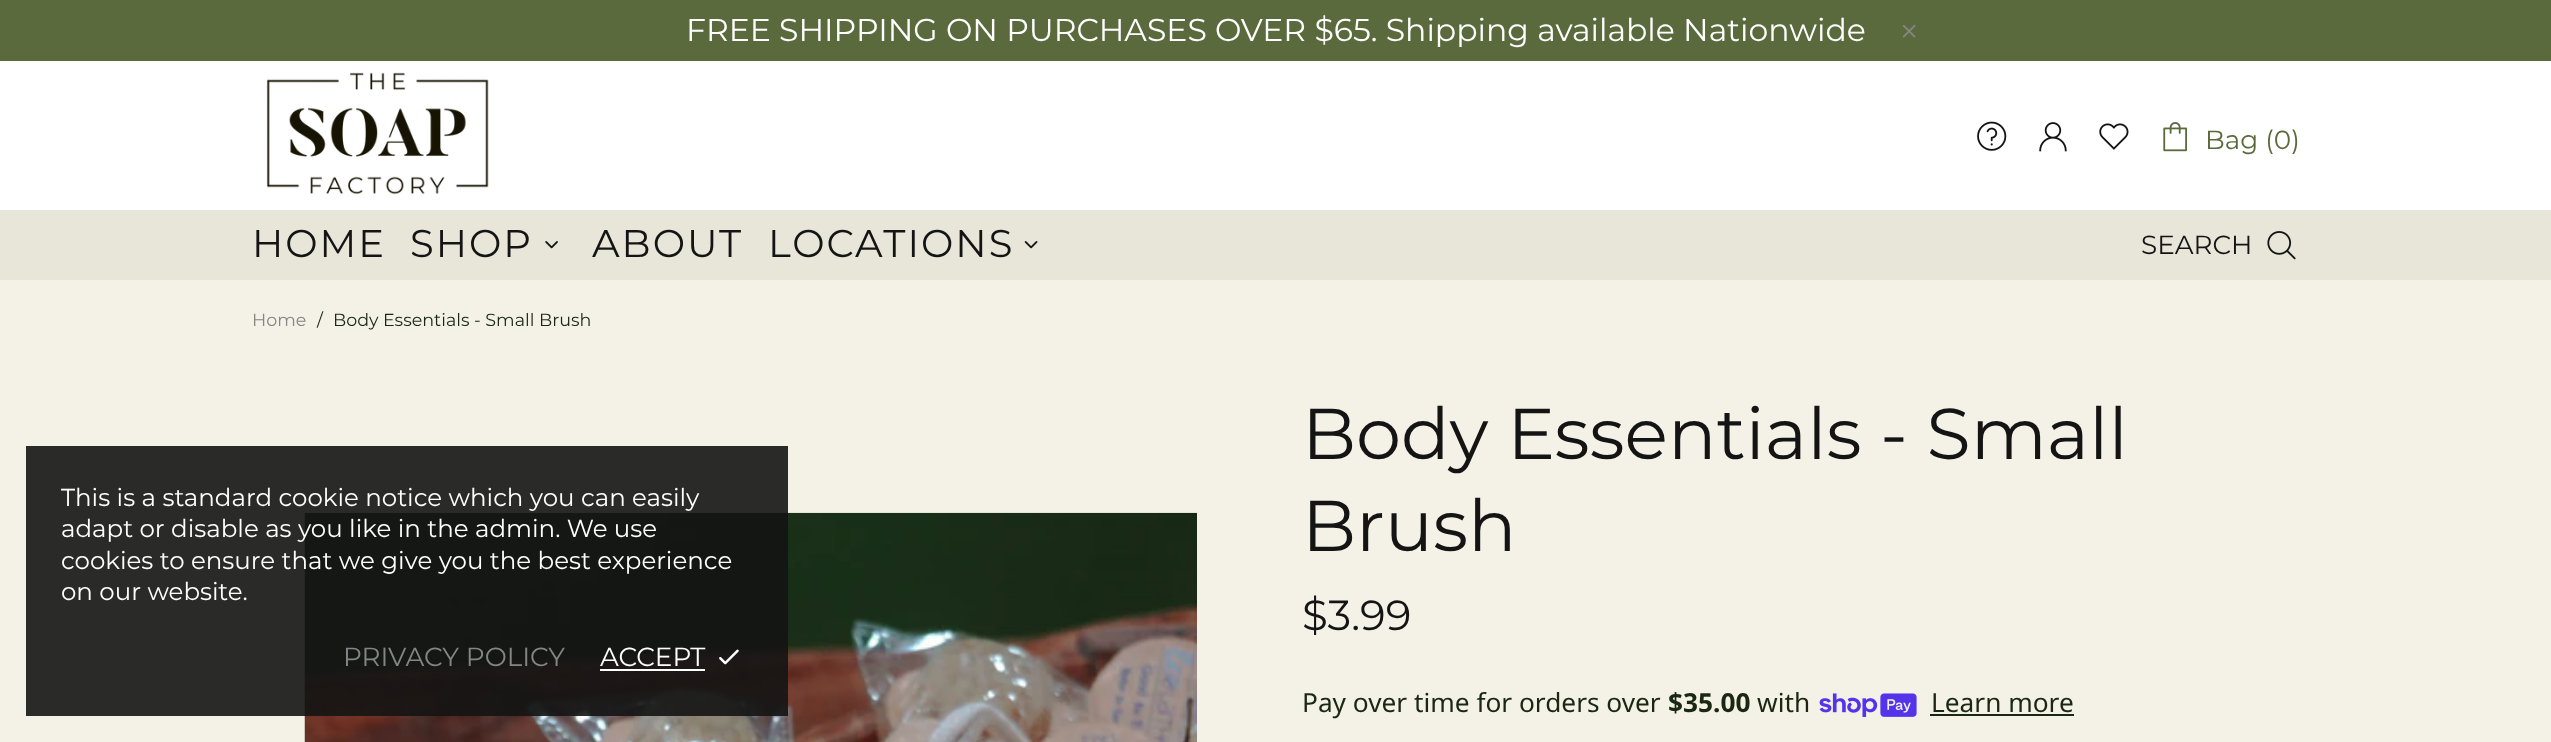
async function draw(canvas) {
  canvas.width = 2551;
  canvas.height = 742;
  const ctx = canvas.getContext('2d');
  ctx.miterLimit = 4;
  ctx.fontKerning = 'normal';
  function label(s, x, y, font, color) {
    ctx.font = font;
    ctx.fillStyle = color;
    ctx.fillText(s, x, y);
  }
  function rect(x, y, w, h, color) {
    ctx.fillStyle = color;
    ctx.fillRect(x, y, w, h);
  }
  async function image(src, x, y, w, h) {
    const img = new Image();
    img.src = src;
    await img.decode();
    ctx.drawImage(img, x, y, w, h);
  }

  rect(0, 0, 2551, 742, '#f4f2e7');
  rect(0, 0, 2551, 61, '#5a6a3d');
  label('FREE SHIPPING ON PURCHASES OVER $65. Shipping available Nationwide', 686, 41, '31.5px Montserrat', '#fff');
  await image('assets/img1.png', 1902, 24, 14, 14);
  rect(0, 61, 2551, 149, '#fff');
  await image('assets/img2.png', 266, 72, 223, 123);
  await image('assets/img3.png', 1977, 121, 30, 30);
  await image('assets/img4.png', 2039, 122, 28, 30);
  await image('assets/img5.png', 2099, 123, 30, 27);
  await image('assets/img6.png', 2163, 122, 24, 30);
  label('Bag (0)', 2205, 149, '26.25px Montserrat', '#5a6a3d');
  rect(0, 210, 2551, 70, '#e8e6d8');
  ctx.letterSpacing = '2px';
  label('HOME', 252, 257, '38.5px Montserrat', '#141414');
  label('SHOP', 410, 257, '38.5px Montserrat', '#141414');
  await image('assets/img7.png', 545, 241, 13, 8);
  label('ABOUT', 592, 257, '38.5px Montserrat', '#141414');
  label('LOCATIONS', 768, 257, '38.5px Montserrat', '#141414');
  await image('assets/img8.png', 1024, 241, 14, 8);
  ctx.letterSpacing = '0px';
  label('SEARCH', 2141, 254, '26.25px Montserrat', '#141414');
  await image('assets/img9.png', 2267, 231, 29, 29);
  label('Home', 252, 326, '17.5px Montserrat', '#858585');
  label('/', 317, 326, '17.5px Montserrat', '#192713');
  label('Body Essentials - Small Brush', 333, 326, '17.5px Montserrat', '#192713');
  await image('assets/img10.png', 304, 512, 893, 230);
  label('Body Essentials - Small', 1302, 459, '71.75px Montserrat', '#141414');
  label('Brush', 1302, 551, '71.75px Montserrat', '#141414');
  label('$3.99', 1302, 630, '42px Montserrat', '#141414');
  label('Pay over time for orders over', 1302, 712, '26.25px Noto Sans', '#192713');
  label('$35.00', 1668, 712, 'bold 26.25px Noto Sans', '#192713');
  label('with', 1757, 712, '26.25px Noto Sans', '#192713');
  await image('assets/img11.png', 1819, 693, 98, 24);
  label('Learn more', 1931, 712, '26.25px Noto Sans', '#192713');
  rect(1930, 714, 144, 2, '#192713');
  rect(26, 446, 762, 270, '#141414e6');
  label('This is a standard cookie notice which you can easily', 61, 506, '24.5px Montserrat', '#fff');
  label('adapt or disable as you like in the admin. We use', 61, 537, '24.5px Montserrat', '#fff');
  label('cookies to ensure that we give you the best experience', 61, 569, '24.5px Montserrat', '#fff');
  label('on our website.', 61, 600, '24.5px Montserrat', '#fff');
  label('PRIVACY POLICY', 343, 666, '26.25px Montserrat', '#858585');
  label('ACCEPT', 600, 666, '26.25px Montserrat', '#fff');
  rect(600, 669, 105, 2, '#fff');
  await image('assets/img12.png', 719, 649, 20, 16);
}

draw(document.querySelector('canvas'));
